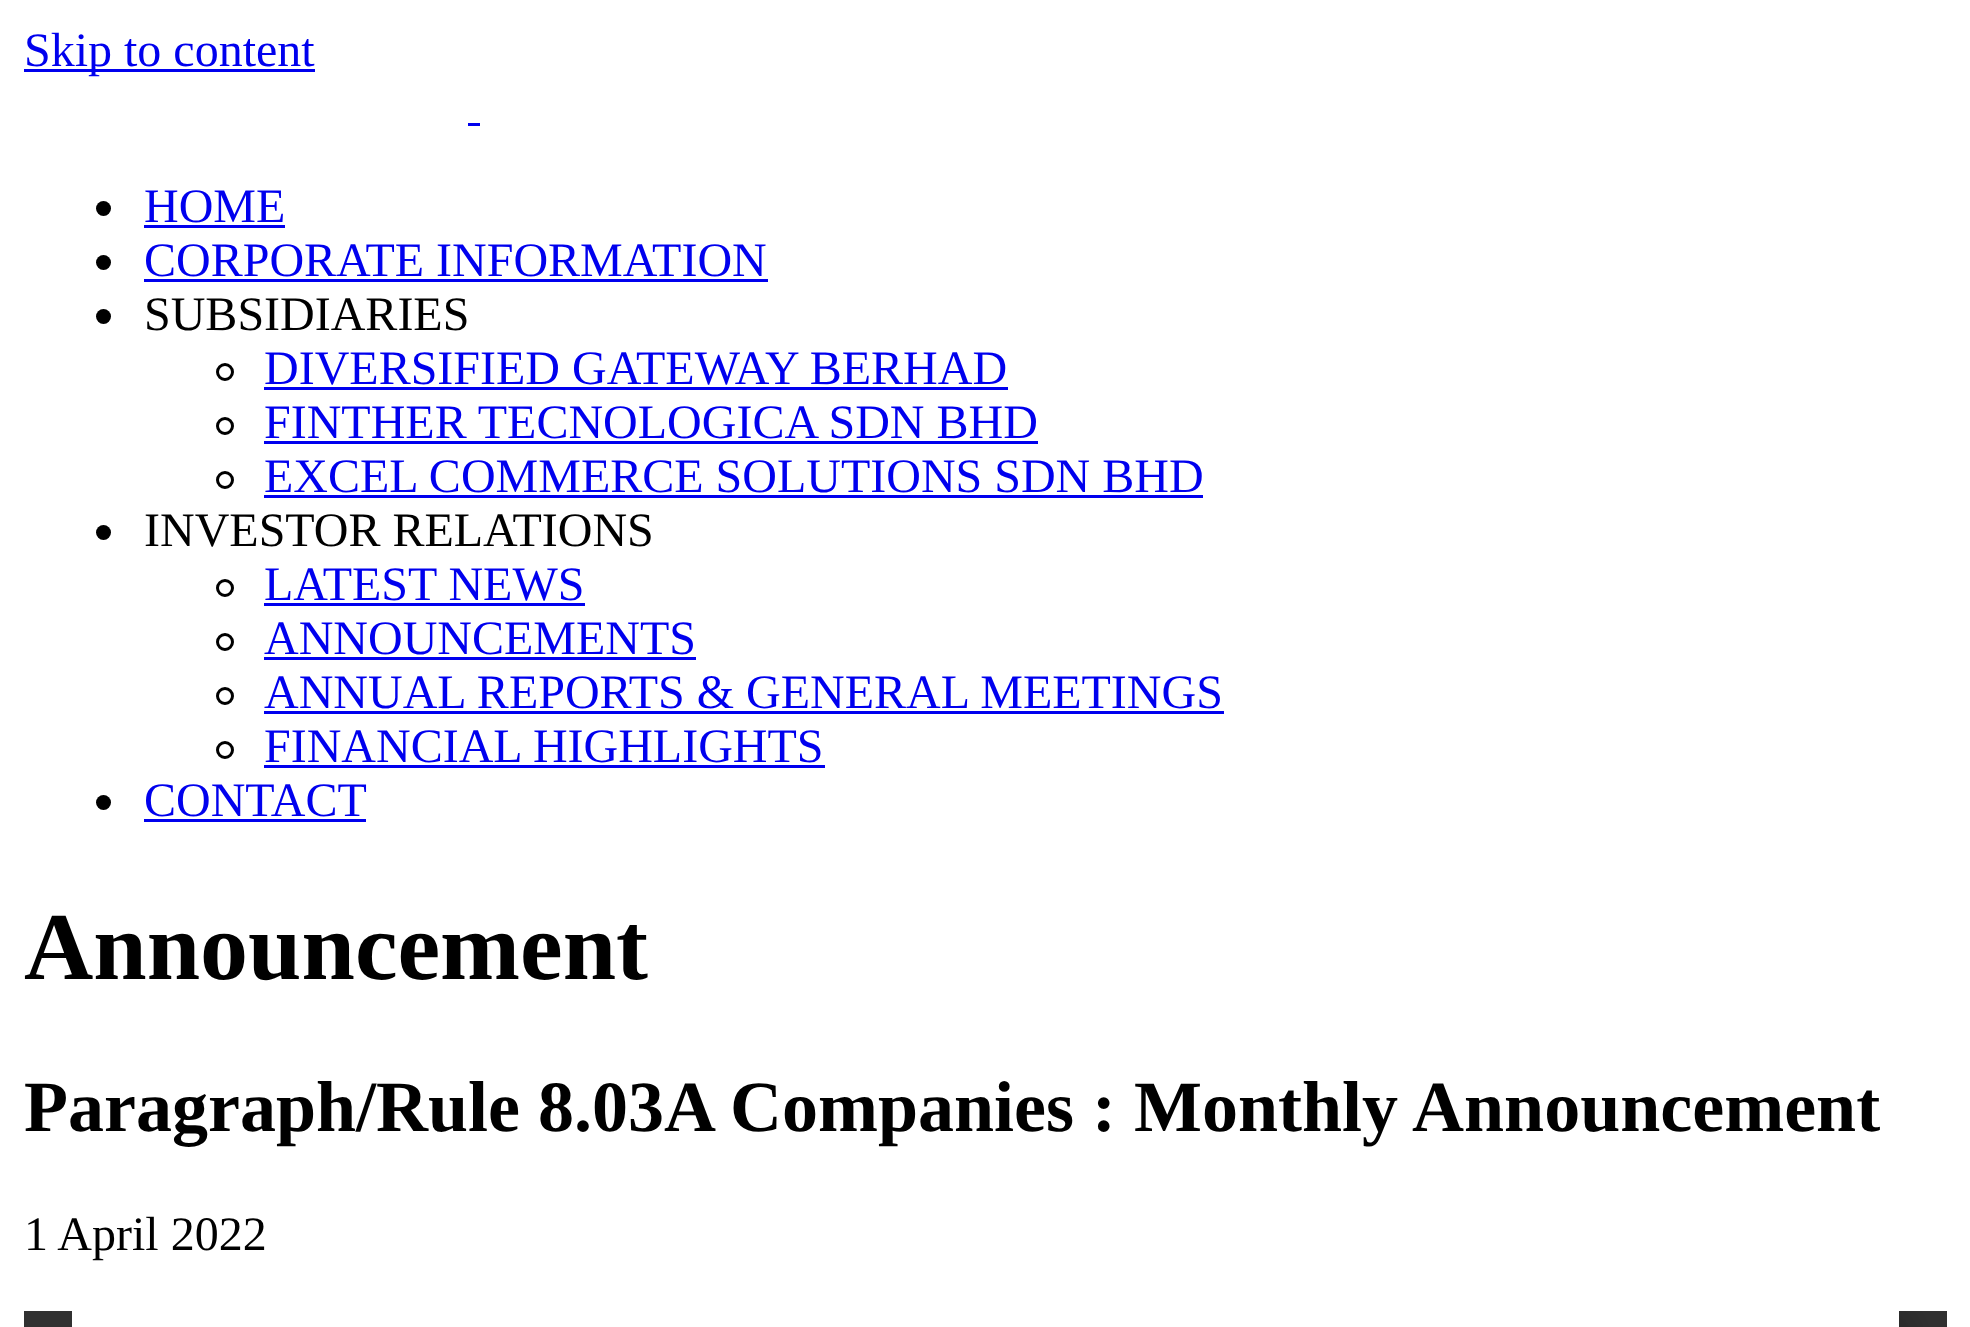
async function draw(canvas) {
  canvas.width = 1970;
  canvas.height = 1327;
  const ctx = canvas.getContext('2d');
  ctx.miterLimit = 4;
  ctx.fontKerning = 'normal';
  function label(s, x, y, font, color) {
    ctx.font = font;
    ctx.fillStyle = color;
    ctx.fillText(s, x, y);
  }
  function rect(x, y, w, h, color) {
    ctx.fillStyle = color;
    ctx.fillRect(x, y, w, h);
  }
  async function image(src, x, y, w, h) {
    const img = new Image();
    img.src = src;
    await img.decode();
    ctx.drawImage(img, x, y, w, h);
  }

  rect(0, 0, 1970, 1327, '#fff');
  rect(24, 69, 291, 3, '#00e');
  label('Skip to content', 24, 66, '48px Liberation Serif', '#00e');
  rect(468, 123, 12, 3, '#00e');
  ctx.fillStyle = '#000';
  ctx.beginPath();
  ctx.arc(103.5, 208.5, 7.5, 0, 2 * Math.PI);
  ctx.fill();
  label('HOME', 144, 222, '48px Liberation Serif', '#00e');
  rect(144, 225, 141, 3, '#00e');
  ctx.fillStyle = '#000';
  ctx.beginPath();
  ctx.arc(103.5, 262.5, 7.5, 0, 2 * Math.PI);
  ctx.fill();
  label('CORPORATE INFORMATION', 144, 276, '48px Liberation Serif', '#00e');
  rect(144, 279, 624, 3, '#00e');
  ctx.fillStyle = '#000';
  ctx.beginPath();
  ctx.arc(103.5, 316.5, 7.5, 0, 2 * Math.PI);
  ctx.fill();
  label('SUBSIDIARIES', 144, 330, '48px Liberation Serif', '#000');
  ctx.beginPath();
  ctx.arc(225, 372, 7.5, 0, 2 * Math.PI);
  ctx.strokeStyle = '#000';
  ctx.lineWidth = 3;
  ctx.stroke();
  label('DIVERSIFIED GATEWAY BERHAD', 264, 384, '48px Liberation Serif', '#00e');
  rect(264, 387, 744, 3, '#00e');
  ctx.beginPath();
  ctx.arc(225, 426, 7.5, 0, 2 * Math.PI);
  ctx.stroke();
  label('FINTHER TECNOLOGICA SDN BHD', 264, 438, '48px Liberation Serif', '#00e');
  rect(264, 441, 774, 3, '#00e');
  ctx.beginPath();
  ctx.arc(225, 480, 7.5, 0, 2 * Math.PI);
  ctx.stroke();
  label('EXCEL COMMERCE SOLUTIONS SDN BHD', 264, 492, '48px Liberation Serif', '#00e');
  rect(264, 495, 939, 3, '#00e');
  ctx.fillStyle = '#000';
  ctx.beginPath();
  ctx.arc(103.5, 532.5, 7.5, 0, 2 * Math.PI);
  ctx.fill();
  label('INVESTOR RELATIONS', 144, 546, '48px Liberation Serif', '#000');
  ctx.beginPath();
  ctx.arc(225, 588, 7.5, 0, 2 * Math.PI);
  ctx.stroke();
  label('LATEST NEWS', 264, 600, '48px Liberation Serif', '#00e');
  rect(264, 603, 321, 3, '#00e');
  ctx.beginPath();
  ctx.arc(225, 642, 7.5, 0, 2 * Math.PI);
  ctx.stroke();
  label('ANNOUNCEMENTS', 264, 654, '48px Liberation Serif', '#00e');
  rect(264, 657, 432, 3, '#00e');
  ctx.beginPath();
  ctx.arc(225, 696, 7.5, 0, 2 * Math.PI);
  ctx.stroke();
  label('ANNUAL REPORTS & GENERAL MEETINGS', 264, 708, '48px Liberation Serif', '#00e');
  rect(264, 711, 960, 3, '#00e');
  ctx.beginPath();
  ctx.arc(225, 750, 7.5, 0, 2 * Math.PI);
  ctx.stroke();
  label('FINANCIAL HIGHLIGHTS', 264, 762, '48px Liberation Serif', '#00e');
  rect(264, 765, 561, 3, '#00e');
  ctx.fillStyle = '#000';
  ctx.beginPath();
  ctx.arc(103.5, 802.5, 7.5, 0, 2 * Math.PI);
  ctx.fill();
  label('CONTACT', 144, 816, '48px Liberation Serif', '#00e');
  rect(144, 819, 222, 3, '#00e');
  label('Announcement', 24, 979, 'bold 96px Liberation Serif', '#000');
  label('Paragraph/Rule 8.03A Companies : Monthly Announcement', 24, 1131, 'bold 72px Liberation Serif', '#000');
  label('1 April 2022', 24, 1250, '48px Liberation Serif', '#000');
  await image('assets/img1.png', 24, 1311, 1923, 16);
}

draw(document.querySelector('canvas'));
